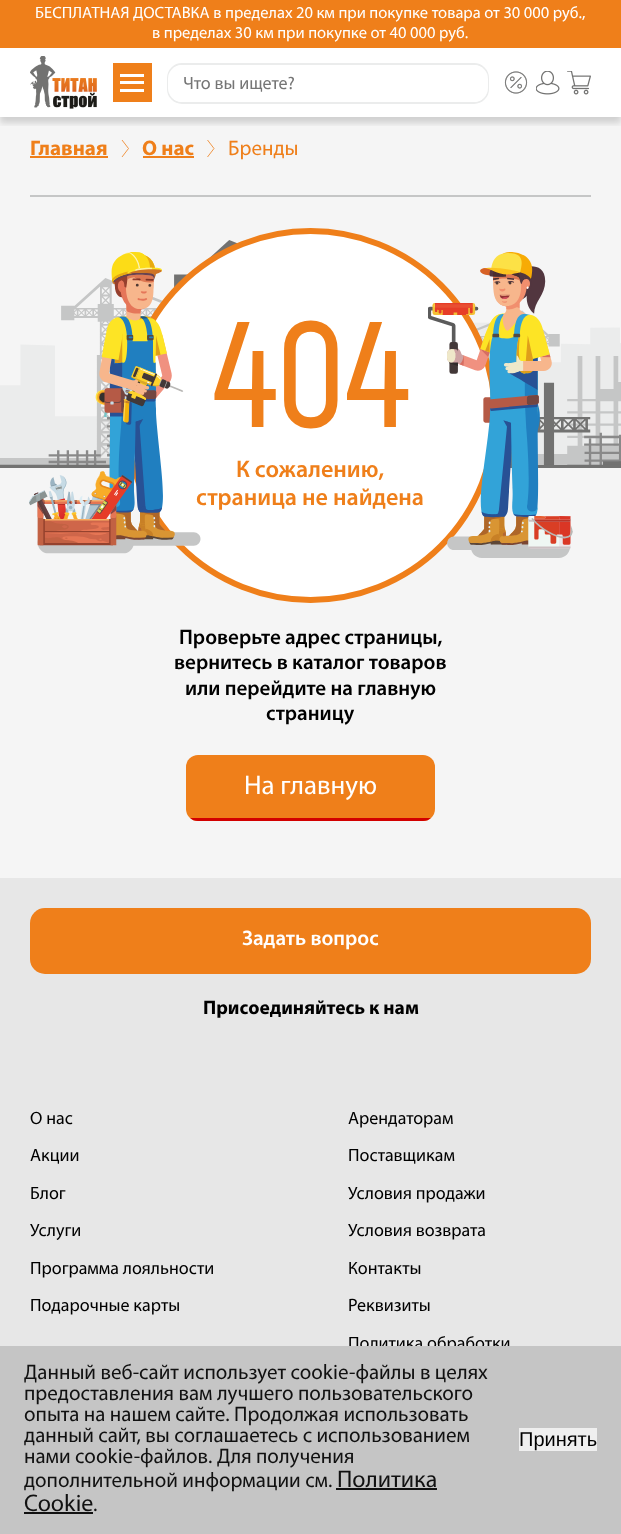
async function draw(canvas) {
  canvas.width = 621;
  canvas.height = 1534;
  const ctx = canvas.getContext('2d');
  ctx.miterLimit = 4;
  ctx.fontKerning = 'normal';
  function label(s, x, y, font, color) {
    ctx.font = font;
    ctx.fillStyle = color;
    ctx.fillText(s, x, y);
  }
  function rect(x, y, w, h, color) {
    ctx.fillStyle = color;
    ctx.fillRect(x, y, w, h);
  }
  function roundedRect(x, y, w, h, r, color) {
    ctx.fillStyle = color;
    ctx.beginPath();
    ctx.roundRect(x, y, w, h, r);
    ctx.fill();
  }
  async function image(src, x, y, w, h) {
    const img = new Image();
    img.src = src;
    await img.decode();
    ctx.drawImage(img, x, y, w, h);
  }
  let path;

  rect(0, 0, 621, 1534, '#fff');
  rect(0, 117, 621, 761, '#f5f5f5');
  ctx.save();
  ctx.beginPath();
  ctx.rect(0, 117, 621, 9);
  ctx.clip();
  ctx.fillStyle = '#00000026';
  ctx.filter = 'blur(3px)';
  ctx.beginPath();
  ctx.rect(0, 6, 621, 117);
  ctx.fill();
  ctx.filter = 'none';
  ctx.restore();
  rect(0, 0, 621, 48, '#ef7f1a');
  label('БЕСПЛАТНАЯ ДОСТАВКА в пределах 20 км при покупке товара от 30 000 руб.,', 35, 18, '16.5px Myriad', '#fff');
  label('в пределах 30 км при покупке от 40 000 руб.', 152, 38, '16.5px Myriad', '#fff');
  await image('assets/img1.png', 30, 56, 67, 53);
  rect(113, 63, 39, 39, '#ef7f1a');
  rect(120, 81, 24, 3, '#fff');
  rect(120, 74, 24, 3, '#fff');
  rect(120, 89, 24, 3, '#fff');
  ctx.beginPath();
  ctx.roundRect(168, 64, 320, 39, 14);
  ctx.strokeStyle = '#ebecec';
  ctx.lineWidth = 2;
  ctx.stroke();
  roundedRect(168, 65, 320, 37, 14, '#fff');
  label('Что вы ищете?', 183, 89, '18px Myriad', '#757575');
  await image('assets/img2.png', 504, 71, 24, 23);
  await image('assets/img3.png', 536, 71, 24, 24);
  await image('assets/img4.png', 567, 71, 24, 24);
  label('Главная', 30, 155, 'bold 21px Myriad', '#ef7f1a');
  rect(30, 156, 78, 2, '#ef7f1a');
  path = new Path2D('M122 140L128.5 148.5L122 157');
  ctx.strokeStyle = '#ef7f1a';
  ctx.lineWidth = 0.8;
  ctx.stroke(path);
  label('О нас', 142, 155, 'bold 21px Myriad', '#ef7f1a');
  rect(143, 156, 51, 2, '#ef7f1a');
  path = new Path2D('M207.5 140L214 148.5L207.5 157');
  ctx.stroke(path);
  label('Бренды', 228, 155, '21px Myriad', '#ef7f1a');
  rect(30, 195, 561, 2, '#c5c6c6');
  await image('assets/img5.png', 0, 240, 621, 228);
  ctx.fillStyle = '#fff';
  ctx.beginPath();
  ctx.arc(310.5, 415.5, 184.5, 0, 2 * Math.PI);
  ctx.fill();
  ctx.lineWidth = 6;
  ctx.stroke();
  label('страница не найдена', 196, 505, '600 24px Myriad', '#ef7f1a');
  await image('assets/img6.png', 29, 252, 172, 302);
  label('404', 213, 427, '600 150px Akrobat', '#ef7f1a');
  label('К сожалению,', 236, 477, '600 24px Myriad', '#ef7f1a');
  await image('assets/img7.png', 428, 252, 145, 306);
  label('Проверьте адрес страницы,', 179, 644, '600 21px Myriad', '#000');
  label('вернитесь в каталог товаров', 174, 669, '600 21px Myriad', '#000');
  label('или перейдите на главную', 185, 695, '600 21px Myriad', '#000');
  label('страницу', 266, 720, '600 21px Myriad', '#000');
  roundedRect(186, 755, 249, 66, 12, '#ef7f1a');
  label('На главную', 244, 794, '27px Myriad', '#fff');
  ctx.save();
  ctx.beginPath();
  ctx.roundRect(186, 755, 249, 66, 12);
  ctx.clip();
  rect(186, 818, 249, 3, '#d20000');
  ctx.restore();
  rect(0, 878, 621, 468, '#e7e7e7');
  roundedRect(30, 908, 561, 66, 15, '#ef7f1a');
  label('Задать вопрос', 242, 945, '600 21px Myriad', '#fff');
  label('Присоединяйтесь к нам', 203, 1014, 'bold 19.5px Myriad', '#000');
  label('О нас', 30, 1124, '18px Myriad', '#000');
  label('Акции', 30, 1161, '18px Myriad', '#000');
  label('Блог', 30, 1199, '18px Myriad', '#000');
  label('Услуги', 30, 1236, '18px Myriad', '#000');
  label('Арендаторам', 348, 1124, '18px Myriad', '#000');
  label('Поставщикам', 348, 1161, '18px Myriad', '#000');
  label('Условия продажи', 348, 1199, '18px Myriad', '#000');
  label('Условия возврата', 348, 1236, '18px Myriad', '#000');
  label('Программа лояльности', 30, 1274, '18px Myriad', '#000');
  label('Подарочные карты', 30, 1311, '18px Myriad', '#000');
  label('Контакты', 348, 1274, '18px Myriad', '#000');
  label('Реквизиты', 348, 1311, '18px Myriad', '#000');
  label('Политика обработки', 348, 1349, '18px Myriad', '#000');
  rect(0, 1346, 621, 188, '#c5c5c5');
  label('Данный веб-сайт использует cookie-файлы в целях', 24, 1379, '21px Myriad', '#111');
  label('предоставления вам лучшего пользовательского', 24, 1400, '21px Myriad', '#111');
  label('опыта на нашем сайте. Продолжая использовать', 24, 1421, '21px Myriad', '#111');
  label('данный сайт, вы соглашаетесь с использованием', 24, 1442, '21px Myriad', '#111');
  label('нами cookie-файлов. Для получения', 24, 1463, '21px Myriad', '#111');
  label('дополнительной информации см.', 24, 1487, '21px Myriad', '#111');
  label('Политика', 337, 1487, '24px Myriad', '#111');
  rect(336, 1488, 101, 2, '#111');
  label('Cookie', 24, 1511, '24px Myriad', '#111');
  rect(24, 1512, 69, 2, '#111');
  label('.', 93, 1511, '21px Myriad', '#111');
  rect(519, 1428, 78, 23, '#efefef');
  label('Принять', 519, 1446, '20px Liberation Sans', '#000');
}

draw(document.querySelector('canvas'));
